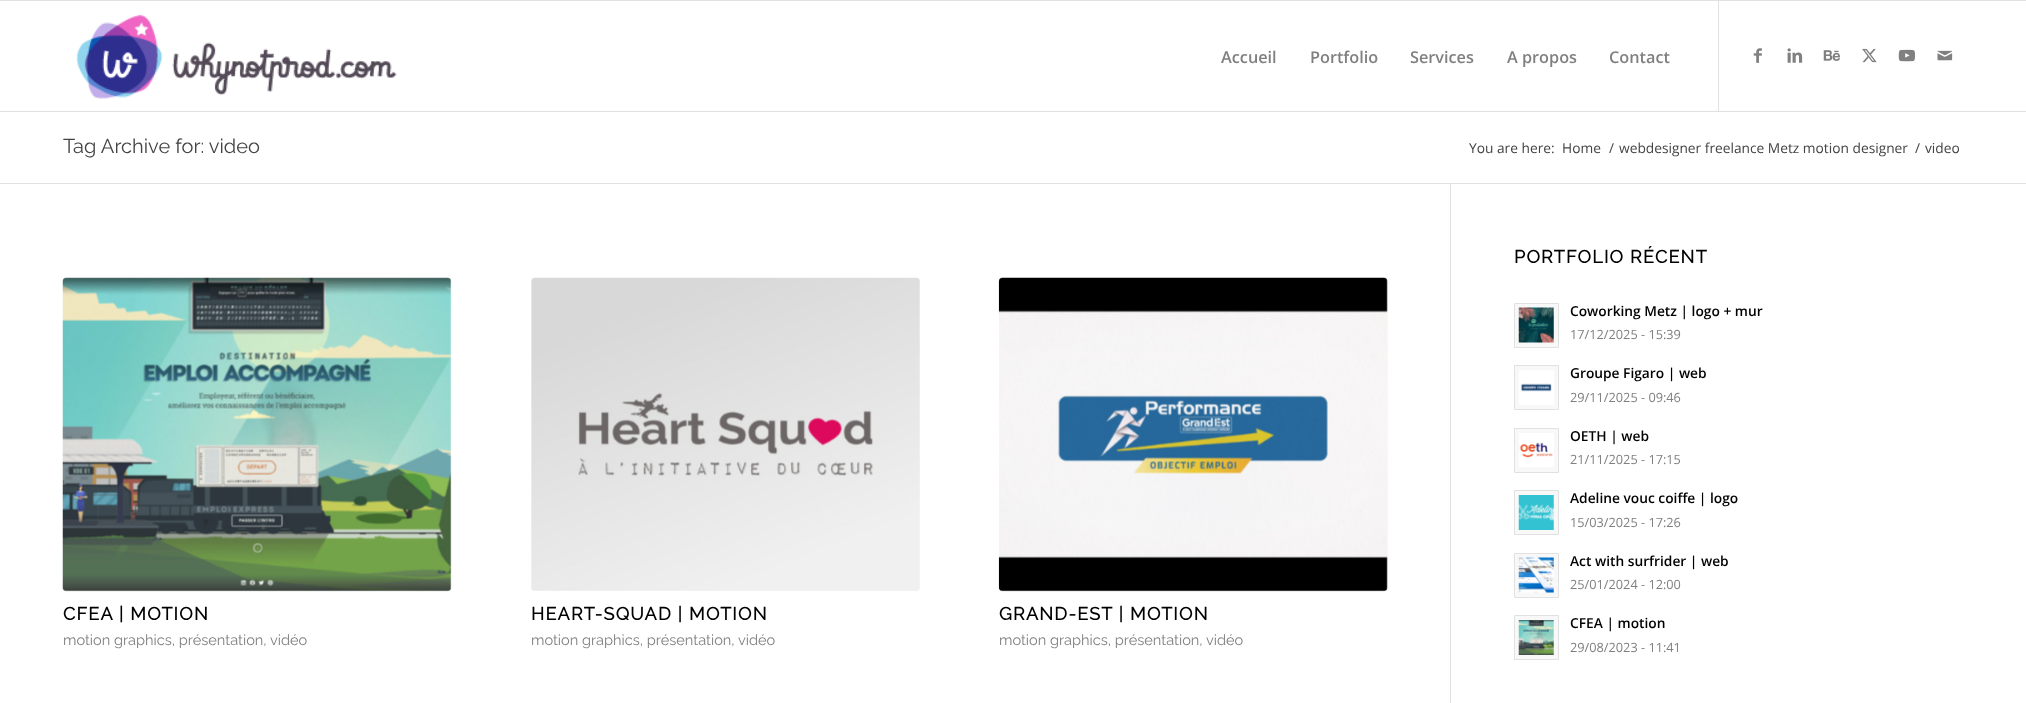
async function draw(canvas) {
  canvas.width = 2026;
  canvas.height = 703;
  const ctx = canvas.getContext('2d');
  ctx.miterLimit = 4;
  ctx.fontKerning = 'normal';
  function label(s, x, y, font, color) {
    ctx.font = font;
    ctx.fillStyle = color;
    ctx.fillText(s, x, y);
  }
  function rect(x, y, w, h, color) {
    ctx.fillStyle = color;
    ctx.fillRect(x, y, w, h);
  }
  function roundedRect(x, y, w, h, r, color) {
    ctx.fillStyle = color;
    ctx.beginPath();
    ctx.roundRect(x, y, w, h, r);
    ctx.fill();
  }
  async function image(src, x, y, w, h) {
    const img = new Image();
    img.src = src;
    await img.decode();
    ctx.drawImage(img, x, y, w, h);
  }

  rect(0, 0, 2026, 703, '#fff');
  rect(0, 0, 2026, 1, '#e1e1e1');
  rect(0, 111, 2026, 1, '#e1e1e1');
  await image('assets/img1.png', 76, 14, 321, 85);
  rect(0, 110, 2026, 1, '#fbfbfb');
  rect(1718, 1, 1, 110, '#e1e1e1');
  label('Accueil', 1221, 63, '600 16.25px Open Sans', '#808080');
  label('Portfolio', 1310, 63, '600 16.25px Open Sans', '#808080');
  label('Services', 1410, 63, '600 16.25px Open Sans', '#808080');
  label('A propos', 1507, 63, '600 16.25px Open Sans', '#808080');
  label('Contact', 1609, 63, '600 16.25px Open Sans', '#808080');
  await image('assets/img2.png', 1753, 48, 9, 15);
  await image('assets/img3.png', 1787, 48, 16, 15);
  await image('assets/img4.png', 1823, 50, 17, 11);
  await image('assets/img5.png', 1862, 48, 15, 15);
  await image('assets/img6.png', 1898, 49, 17, 13);
  await image('assets/img7.png', 1937, 50, 16, 11);
  label('Tag Archive for: video', 63, 153, '100 20px Raleway', '#444');
  label('You are here:', 1469, 153, '13.75px Open Sans', '#444');
  label('Home', 1562, 153, '13.75px Open Sans', '#444');
  label('/', 1609, 153, '13.75px Open Sans', '#444');
  label('webdesigner freelance Metz motion designer', 1619, 153, '13.75px Open Sans', '#444');
  label('/', 1915, 153, '13.75px Open Sans', '#444');
  label('video', 1925, 153, '13.75px Open Sans', '#444');
  rect(0, 183, 2026, 1, '#e1e1e1');
  rect(1450, 184, 1, 519, '#e1e1e1');
  await image('assets/img8.png', 62, 277, 390, 315);
  ctx.letterSpacing = '1.25px';
  label('CFEA | MOTION', 63, 620, 'bold 17.9px Raleway', '#000');
  ctx.letterSpacing = '0px';
  label('motion graphics, présentation,', 63, 645, '100 14.6px Raleway', '#808080');
  label('vidéo', 270, 645, '100 14.6px Raleway', '#808080');
  roundedRect(531, 278, 389, 313, 4, '#f8f8f8');
  await image('assets/img9.png', 531, 277, 389, 314);
  ctx.letterSpacing = '1.25px';
  label('HEART-SQUAD | MOTION', 531, 620, 'bold 17.9px Raleway', '#000');
  ctx.letterSpacing = '0px';
  label('motion graphics, présentation,', 531, 645, '100 14.6px Raleway', '#808080');
  label('vidéo', 738, 645, '100 14.6px Raleway', '#808080');
  roundedRect(999, 278, 389, 313, 4, '#f8f8f8');
  await image('assets/img10.png', 998, 277, 390, 315);
  ctx.letterSpacing = '1.25px';
  label('GRAND-EST | MOTION', 999, 620, 'bold 17.9px Raleway', '#000');
  ctx.letterSpacing = '0px';
  label('motion graphics, présentation,', 999, 645, '100 14.6px Raleway', '#808080');
  label('vidéo', 1206, 645, '100 14.6px Raleway', '#808080');
  ctx.letterSpacing = '1.25px';
  label('PORTFOLIO RÉCENT', 1514, 263, 'bold 17.9px Raleway', '#000');
  ctx.fillStyle = '#f8f8f8';
  ctx.beginPath();
  ctx.rect(1514.5, 303.5, 44, 44);
  ctx.fill();
  ctx.strokeStyle = '#e1e1e1';
  ctx.stroke();
  await image('assets/img11.png', 1518, 307, 36, 36);
  ctx.letterSpacing = '0px';
  label('Coworking Metz | logo + mur', 1570, 316, '600 13.75px Open Sans', '#000');
  label('17/12/2025 - 15:39', 1570, 339, '12.75px Open Sans', '#808080');
  ctx.fillStyle = '#f8f8f8';
  ctx.beginPath();
  ctx.rect(1514.5, 365.5, 44, 44);
  ctx.fill();
  ctx.stroke();
  await image('assets/img12.png', 1519, 370, 35, 35);
  label('Groupe Figaro | web', 1570, 378, '600 13.75px Open Sans', '#000');
  label('29/11/2025 - 09:46', 1570, 402, '12.75px Open Sans', '#808080');
  ctx.fillStyle = '#f8f8f8';
  ctx.beginPath();
  ctx.rect(1514.5, 428.5, 44, 44);
  ctx.fill();
  ctx.stroke();
  await image('assets/img13.png', 1519, 433, 35, 34);
  label('OETH | web', 1570, 441, '600 13.75px Open Sans', '#000');
  label('21/11/2025 - 17:15', 1570, 464, '12.75px Open Sans', '#808080');
  ctx.fillStyle = '#f8f8f8';
  ctx.beginPath();
  ctx.rect(1514.5, 490.5, 44, 44);
  ctx.fill();
  ctx.stroke();
  await image('assets/img14.png', 1518, 495, 36, 35);
  label('Adeline vouc coiffe | logo', 1570, 503, '600 13.75px Open Sans', '#000');
  label('15/03/2025 - 17:26', 1570, 527, '12.75px Open Sans', '#808080');
  ctx.fillStyle = '#f8f8f8';
  ctx.beginPath();
  ctx.rect(1514.5, 553.5, 44, 44);
  ctx.fill();
  ctx.stroke();
  await image('assets/img15.png', 1518, 557, 36, 36);
  label('Act with surfrider | web', 1570, 566, '600 13.75px Open Sans', '#000');
  label('25/01/2024 - 12:00', 1570, 589, '12.75px Open Sans', '#808080');
  ctx.fillStyle = '#f8f8f8';
  ctx.beginPath();
  ctx.rect(1514.5, 615.5, 44, 44);
  ctx.fill();
  ctx.stroke();
  await image('assets/img16.png', 1518, 620, 36, 35);
  label('CFEA | motion', 1570, 628, '600 13.75px Open Sans', '#000');
  label('29/08/2023 - 11:41', 1570, 652, '12.75px Open Sans', '#808080');
}

draw(document.querySelector('canvas'));
